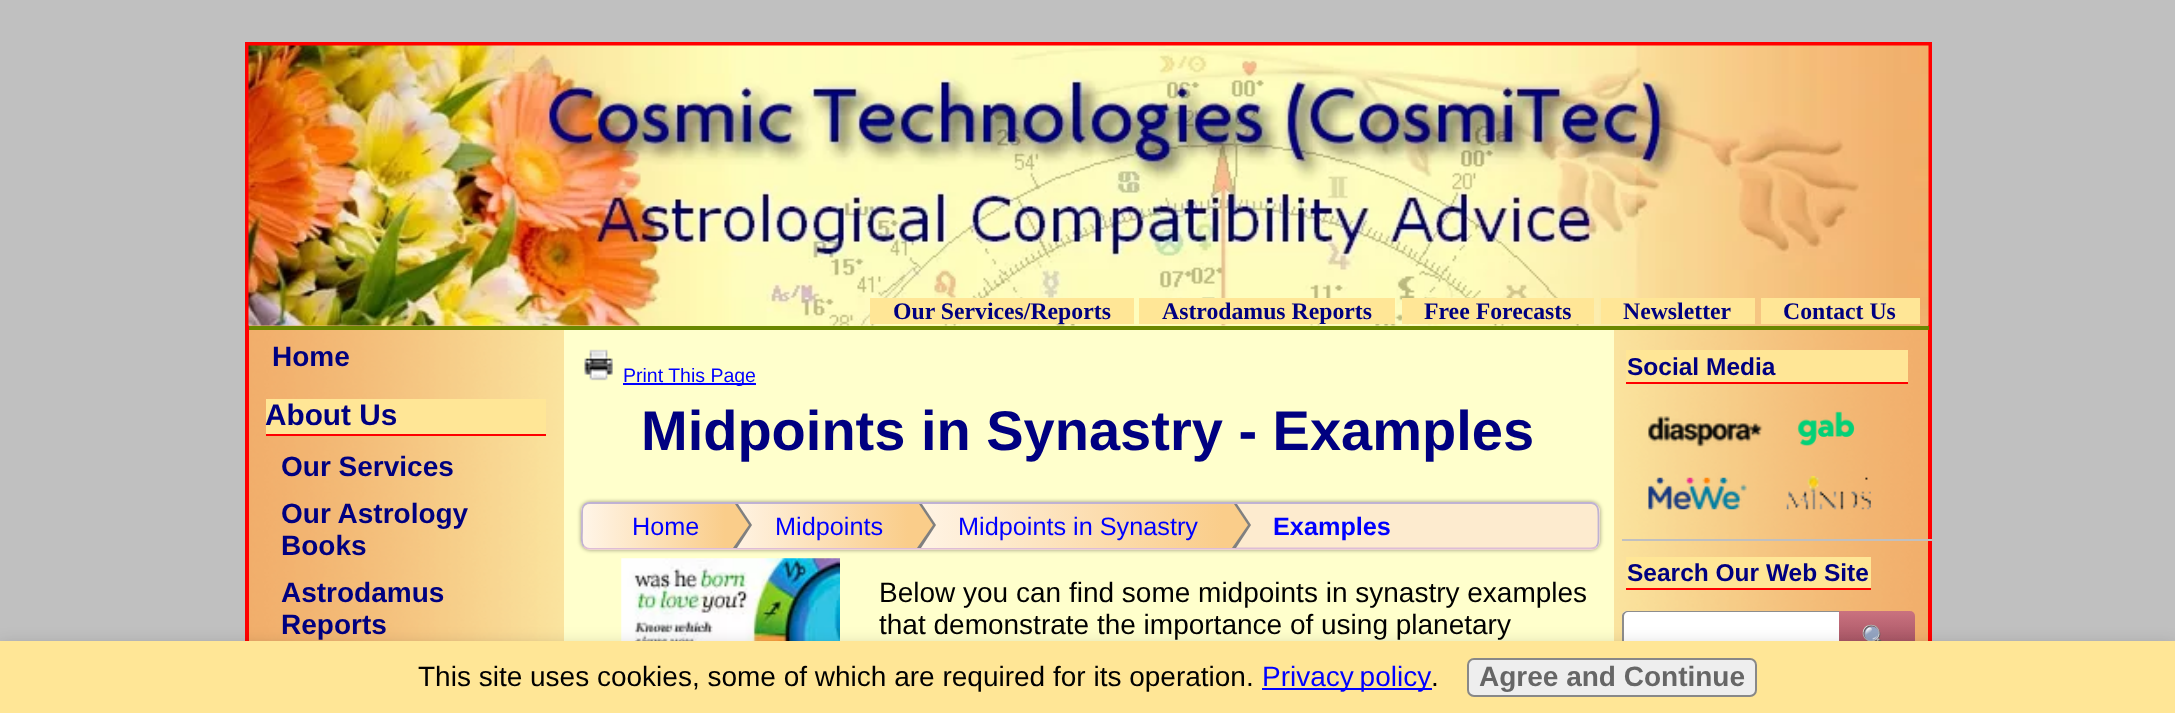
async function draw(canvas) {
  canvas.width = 2175;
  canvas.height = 713;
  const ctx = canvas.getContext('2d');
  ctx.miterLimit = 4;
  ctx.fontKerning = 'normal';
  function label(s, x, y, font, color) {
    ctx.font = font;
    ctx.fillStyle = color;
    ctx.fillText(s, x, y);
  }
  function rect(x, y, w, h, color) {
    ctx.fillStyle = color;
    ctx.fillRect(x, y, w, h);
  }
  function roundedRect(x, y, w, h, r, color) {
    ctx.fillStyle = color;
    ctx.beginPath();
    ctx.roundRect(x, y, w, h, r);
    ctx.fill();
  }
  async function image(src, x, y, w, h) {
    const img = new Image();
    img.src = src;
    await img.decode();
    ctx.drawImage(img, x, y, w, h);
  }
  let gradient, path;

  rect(0, 0, 2175, 713, '#c0c0c0');
  await image('assets/img1.png', 249, 325, 1679, 316);
  ctx.strokeStyle = '#f00';
  ctx.lineWidth = 4;
  ctx.strokeRect(247, 44, 1683, 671);
  await image('assets/img2.png', 248, 45, 1681, 281);
  rect(249, 326, 1680, 4, '#6a8700');
  rect(870, 298, 264, 26, '#ffe696');
  label('Our Services/Reports', 893, 319, 'bold 23.75px Liberation Serif', '#000080');
  rect(1139, 298, 256, 26, '#ffe696');
  label('Astrodamus Reports', 1162, 319, 'bold 23.75px Liberation Serif', '#000080');
  rect(1402, 298, 192, 26, '#ffe696');
  label('Free Forecasts', 1424, 319, 'bold 23.75px Liberation Serif', '#000080');
  rect(1601, 298, 154, 26, '#ffe696');
  label('Newsletter', 1623, 319, 'bold 23.75px Liberation Serif', '#000080');
  rect(1761, 298, 159, 26, '#ffe696');
  label('Contact Us', 1783, 319, 'bold 23.75px Liberation Serif', '#000080');
  label('Home', 272, 366, 'bold 28px Liberation Sans', '#000080');
  rect(266, 399, 280, 35, '#ffe696');
  rect(266, 434, 280, 2, '#f00');
  label('About Us', 265, 425, 'bold 29.75px Liberation Sans', '#000080');
  label('Our Services', 281, 476, 'bold 28px Liberation Sans', '#000080');
  label('Our Astrology', 281, 523, 'bold 28px Liberation Sans', '#000080');
  label('Books', 281, 555, 'bold 28px Liberation Sans', '#000080');
  label('Astrodamus', 281, 602, 'bold 28px Liberation Sans', '#000080');
  label('Reports', 281, 634, 'bold 28px Liberation Sans', '#000080');
  rect(564, 330, 1050, 311, '#ffc');
  await image('assets/img3.png', 584, 349, 29, 32);
  rect(623, 383, 133, 2, '#00f');
  label('Print This Page', 623, 382, '19.5px Liberation Sans', '#00f');
  label('Midpoints in Synastry - Examples', 641, 450, 'bold 56px Liberation Sans', '#000080');
  ctx.fillStyle = '#00000066';
  ctx.filter = 'blur(2px)';
  ctx.beginPath();
  ctx.roundRect(581, 502, 1019, 48, 9);
  ctx.fill();
  ctx.filter = 'none';
  roundedRect(581, 502, 1019, 48, 9, '#fdebcf');
  path = new Path2D('M1596.5 546.5C1595 548 1593 548.5 1591 548.5H590C587.5 548.5 585.5 548 584 546.5');
  ctx.strokeStyle = '#debdd6';
  ctx.lineWidth = 1.8;
  ctx.stroke(path);
  path = new Path2D('M584 546.5C580.5 542.5 582 535.5 582 531V516C582 510 582 503 590 503H1591.5C1598.5 504 1598.5 510.5 1598.5 516V536C1598.5 539.5 1599 543.5 1596.5 546.5');
  ctx.strokeStyle = '#bfb2d3';
  ctx.stroke(path);
  gradient = ctx.createLinearGradient(583, 526, 725, 526);
  gradient.addColorStop(0, '#fff5e8');
  gradient.addColorStop(1, '#facd8a');
  ctx.fillStyle = gradient;
  ctx.beginPath();
  ctx.roundRect(583, 504, 142, 44, [7, 0, 0, 7]);
  ctx.fill();
  gradient = ctx.createLinearGradient(725, 526, 908, 526);
  gradient.addColorStop(0, '#fff5e8');
  gradient.addColorStop(1, '#facd8a');
  ctx.fillStyle = gradient;
  ctx.fillRect(737, 504, 171, 44);
  ctx.fillStyle = '#808080';
  path = new Path2D('M738 504L752 525L737 548H728V504Z');
  ctx.fill(path);
  ctx.fillStyle = '#facd8a';
  path = new Path2D('M735 504L749 525L733 548H724V504Z');
  ctx.fill(path);
  label('Home', 632, 535, '25.25px Liberation Sans', '#00f');
  gradient = ctx.createLinearGradient(908, 526, 1223, 526);
  gradient.addColorStop(0, '#fff5e8');
  gradient.addColorStop(1, '#facd8a');
  ctx.fillStyle = gradient;
  ctx.fillRect(921, 504, 302, 44);
  ctx.fillStyle = '#808080';
  path = new Path2D('M922 504L936 525L921 548H912V504Z');
  ctx.fill(path);
  ctx.fillStyle = '#facd8a';
  path = new Path2D('M919 504L933 525L917 548H908V504Z');
  ctx.fill(path);
  label('Midpoints', 775, 535, '25.25px Liberation Sans', '#00f');
  ctx.fillStyle = '#808080';
  path = new Path2D('M1237 504L1251 525L1236 548H1227V504Z');
  ctx.fill(path);
  ctx.fillStyle = '#facd8a';
  path = new Path2D('M1234 504L1248 525L1232 548H1223V504Z');
  ctx.fill(path);
  label('Midpoints in Synastry', 958, 535, '25.25px Liberation Sans', '#00f');
  label('Examples', 1273, 535, 'bold 25.25px Liberation Sans', '#00f');
  await image('assets/img4.png', 621, 558, 219, 83);
  label('Below you can find some midpoints in synastry examples', 879, 602, '28px Liberation Sans', '#000');
  label('that demonstrate the importance of using planetary', 879, 634, '28px Liberation Sans', '#000');
  rect(1626, 350, 282, 32, '#ffe696');
  rect(1626, 382, 282, 2, '#f00');
  label('Social Media', 1627, 375, 'bold 24.5px Liberation Sans', '#000080');
  await image('assets/img5.png', 1648, 416, 115, 31);
  await image('assets/img6.png', 1797, 411, 58, 35);
  await image('assets/img7.png', 1648, 477, 99, 33);
  await image('assets/img8.png', 1786, 476, 85, 34);
  rect(1622, 539, 310, 2, '#c0c0c0');
  rect(1626, 557, 245, 31, '#ffe696');
  rect(1626, 588, 245, 2, '#f00');
  label('Search Our Web Site', 1627, 581, 'bold 24.5px Liberation Sans', '#000080');
  ctx.fillStyle = '#fff';
  ctx.beginPath();
  ctx.roundRect(1622, 611, 217, 52, [5, 0, 0, 5]);
  ctx.fill();
  ctx.fillStyle = '#8d8d8d';
  path = new Path2D('M1628 611H1839V663H1628C1625 663 1622 661 1622 658V616C1622 613 1625 611 1628 611ZM1628 612H1839V662H1628C1626 662 1624 660 1624 658V616C1624 614 1626 612 1628 612Z');
  ctx.fill(path, 'evenodd');
  gradient = ctx.createLinearGradient(1877, 611, 1877, 663);
  gradient.addColorStop(0, '#ca727f');
  gradient.addColorStop(1, '#924455');
  ctx.fillStyle = gradient;
  ctx.beginPath();
  ctx.roundRect(1839, 611, 76, 52, [0, 5, 5, 0]);
  ctx.fill();
  label('🔍', 1861, 645, '23px Noto Color Emoji', '#fff');
  ctx.fillStyle = '#00000033';
  ctx.filter = 'blur(9px)';
  ctx.beginPath();
  ctx.rect(-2, 646, 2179, 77);
  ctx.fill();
  ctx.filter = 'none';
  rect(0, 641, 2175, 72, '#ffe696');
  label('This site uses cookies, some of which are required for its operation.', 418, 686, '28px Liberation Sans', '#000');
  rect(1262, 688, 170, 2, '#00f');
  ctx.wordSpacing = '-2px';
  label('Privacy policy', 1262, 686, '28px Liberation Sans', '#00f');
  ctx.wordSpacing = '0px';
  label('.', 1431, 686, '28px Liberation Sans', '#000');
  ctx.fillStyle = '#eee';
  ctx.beginPath();
  ctx.roundRect(1468, 659, 288, 37, 6);
  ctx.fill();
  ctx.strokeStyle = '#888';
  ctx.lineWidth = 2;
  ctx.stroke();
  label('Agree and Continue', 1479, 686, 'bold 28px Liberation Sans', '#666');
}

draw(document.querySelector('canvas'));
